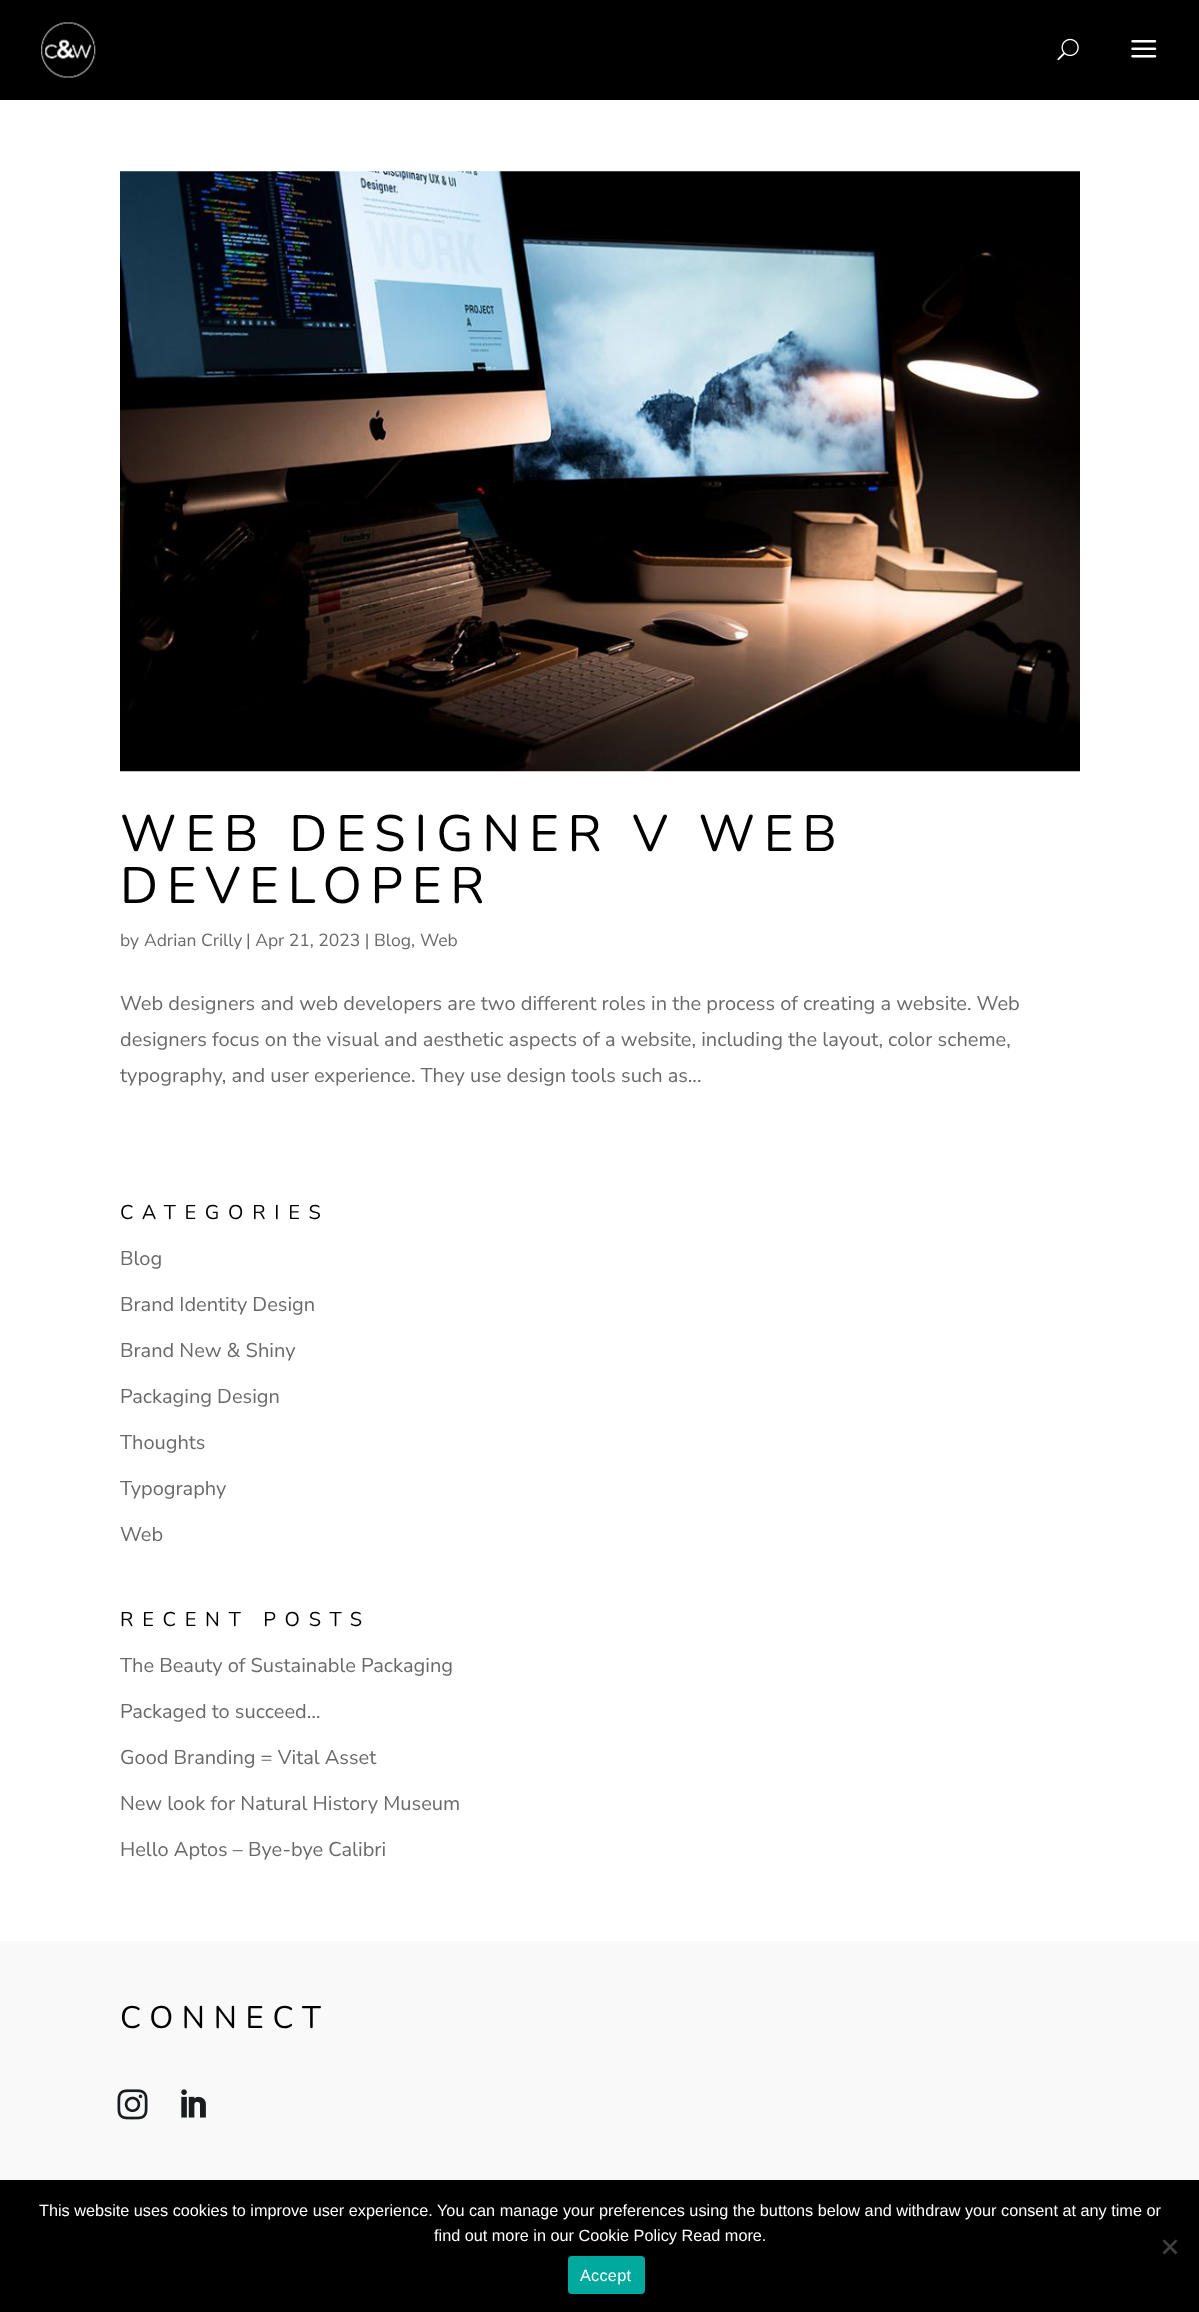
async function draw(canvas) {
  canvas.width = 1199;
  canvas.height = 2312;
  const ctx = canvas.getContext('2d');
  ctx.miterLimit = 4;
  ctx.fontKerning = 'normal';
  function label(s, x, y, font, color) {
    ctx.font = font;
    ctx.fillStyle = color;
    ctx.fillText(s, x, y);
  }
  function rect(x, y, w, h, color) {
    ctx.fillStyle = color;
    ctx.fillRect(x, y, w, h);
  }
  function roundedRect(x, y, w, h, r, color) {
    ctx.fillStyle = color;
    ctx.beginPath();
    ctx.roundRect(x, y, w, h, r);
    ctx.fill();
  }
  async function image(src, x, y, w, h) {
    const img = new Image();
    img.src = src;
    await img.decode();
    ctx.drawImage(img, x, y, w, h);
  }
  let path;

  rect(0, 0, 1199, 2312, '#fff');
  rect(0, 0, 1199, 100, '#000');
  await image('assets/img1.png', 41, 22, 55, 56);
  await image('assets/img2.png', 1057, 38, 22, 23);
  await image('assets/img3.png', 1131, 40, 26, 18);
  await image('assets/img4.png', 120, 171, 960, 601);
  ctx.letterSpacing = '8.75px';
  label('WEB DESIGNER V WEB', 120, 851, '200 51.25px Nunito', '#000');
  label('DEVELOPER', 120, 903, '200 51.25px Nunito', '#000');
  ctx.letterSpacing = '0px';
  label('by', 120, 946, '200 17.5px Nunito Sans', '#696969');
  label('Adrian Crilly', 144, 946, '200 17.5px Nunito Sans', '#696969');
  label('| Apr 21, 2023 |', 246, 946, '200 17.5px Nunito Sans', '#696969');
  label('Blog', 374, 946, '200 17.5px Nunito Sans', '#696969');
  label(',', 411, 946, '200 17.5px Nunito Sans', '#696969');
  label('Web', 420, 946, '200 17.5px Nunito Sans', '#696969');
  label('Web designers and web developers are two different roles in the process of creating a website. Web', 120, 1010, '200 20px Nunito Sans', '#696969');
  label('designers focus on the visual and aesthetic aspects of a website, including the layout, color scheme,', 120, 1046, '200 20px Nunito Sans', '#696969');
  label('typography, and user experience. They use design tools such as...', 120, 1082, '200 20px Nunito Sans', '#696969');
  ctx.letterSpacing = '8.75px';
  label('CATEGORIES', 120, 1219, '200 20px Nunito', '#000');
  ctx.letterSpacing = '0px';
  label('Blog', 120, 1265, '200 20px Nunito Sans', '#696969');
  label('Brand Identity Design', 120, 1311, '200 20px Nunito Sans', '#696969');
  label('Brand New & Shiny', 120, 1357, '200 20px Nunito Sans', '#696969');
  label('Packaging Design', 120, 1403, '200 20px Nunito Sans', '#696969');
  label('Thoughts', 120, 1449, '200 20px Nunito Sans', '#696969');
  label('Typography', 120, 1495, '200 20px Nunito Sans', '#696969');
  label('Web', 120, 1541, '200 20px Nunito Sans', '#696969');
  ctx.letterSpacing = '8.75px';
  label('RECENT POSTS', 120, 1626, '200 20px Nunito', '#000');
  ctx.letterSpacing = '0px';
  label('The Beauty of Sustainable Packaging', 120, 1672, '200 20px Nunito Sans', '#696969');
  label('Packaged to succeed…', 120, 1718, '200 20px Nunito Sans', '#696969');
  label('Good Branding = Vital Asset', 120, 1764, '200 20px Nunito Sans', '#696969');
  label('New look for Natural History Museum', 120, 1810, '200 20px Nunito Sans', '#696969');
  label('Hello Aptos – Bye-bye Calibri', 120, 1856, '200 20px Nunito Sans', '#696969');
  rect(0, 1941, 1199, 239, '#f9f9f9');
  ctx.letterSpacing = '8.75px';
  label('CONNECT', 120, 2028, '200 31.25px Nunito', '#000');
  await image('assets/img5.png', 117, 2089, 31, 31);
  await image('assets/img6.png', 181, 2089, 25, 29);
  rect(0, 2180, 1199, 132, '#000');
  ctx.letterSpacing = '0px';
  label('This website uses cookies to improve user experience. You can manage your preferences using the buttons below and withdraw your consent at any time or', 39, 2216, '16.25px Liberation Sans', '#fff');
  label('find out more in our Cookie Policy Read more.', 434, 2241, '16.25px Liberation Sans', '#fff');
  ctx.fillStyle = '#404040';
  path = new Path2D('M1175.5 2239.5L1177.5 2241L1164.5 2254.5L1162.5 2252.5Z');
  ctx.fill(path);
  path = new Path2D('M1162.5 2241L1164.5 2239.5L1177.5 2252.5L1175.5 2254.5Z');
  ctx.fill(path);
  roundedRect(568, 2256, 77, 38, 4, '#00a99d');
  ctx.letterSpacing = '0.25px';
  label('Accept', 580, 2281, '16.25px Liberation Sans', '#fff');
}

draw(document.querySelector('canvas'));
